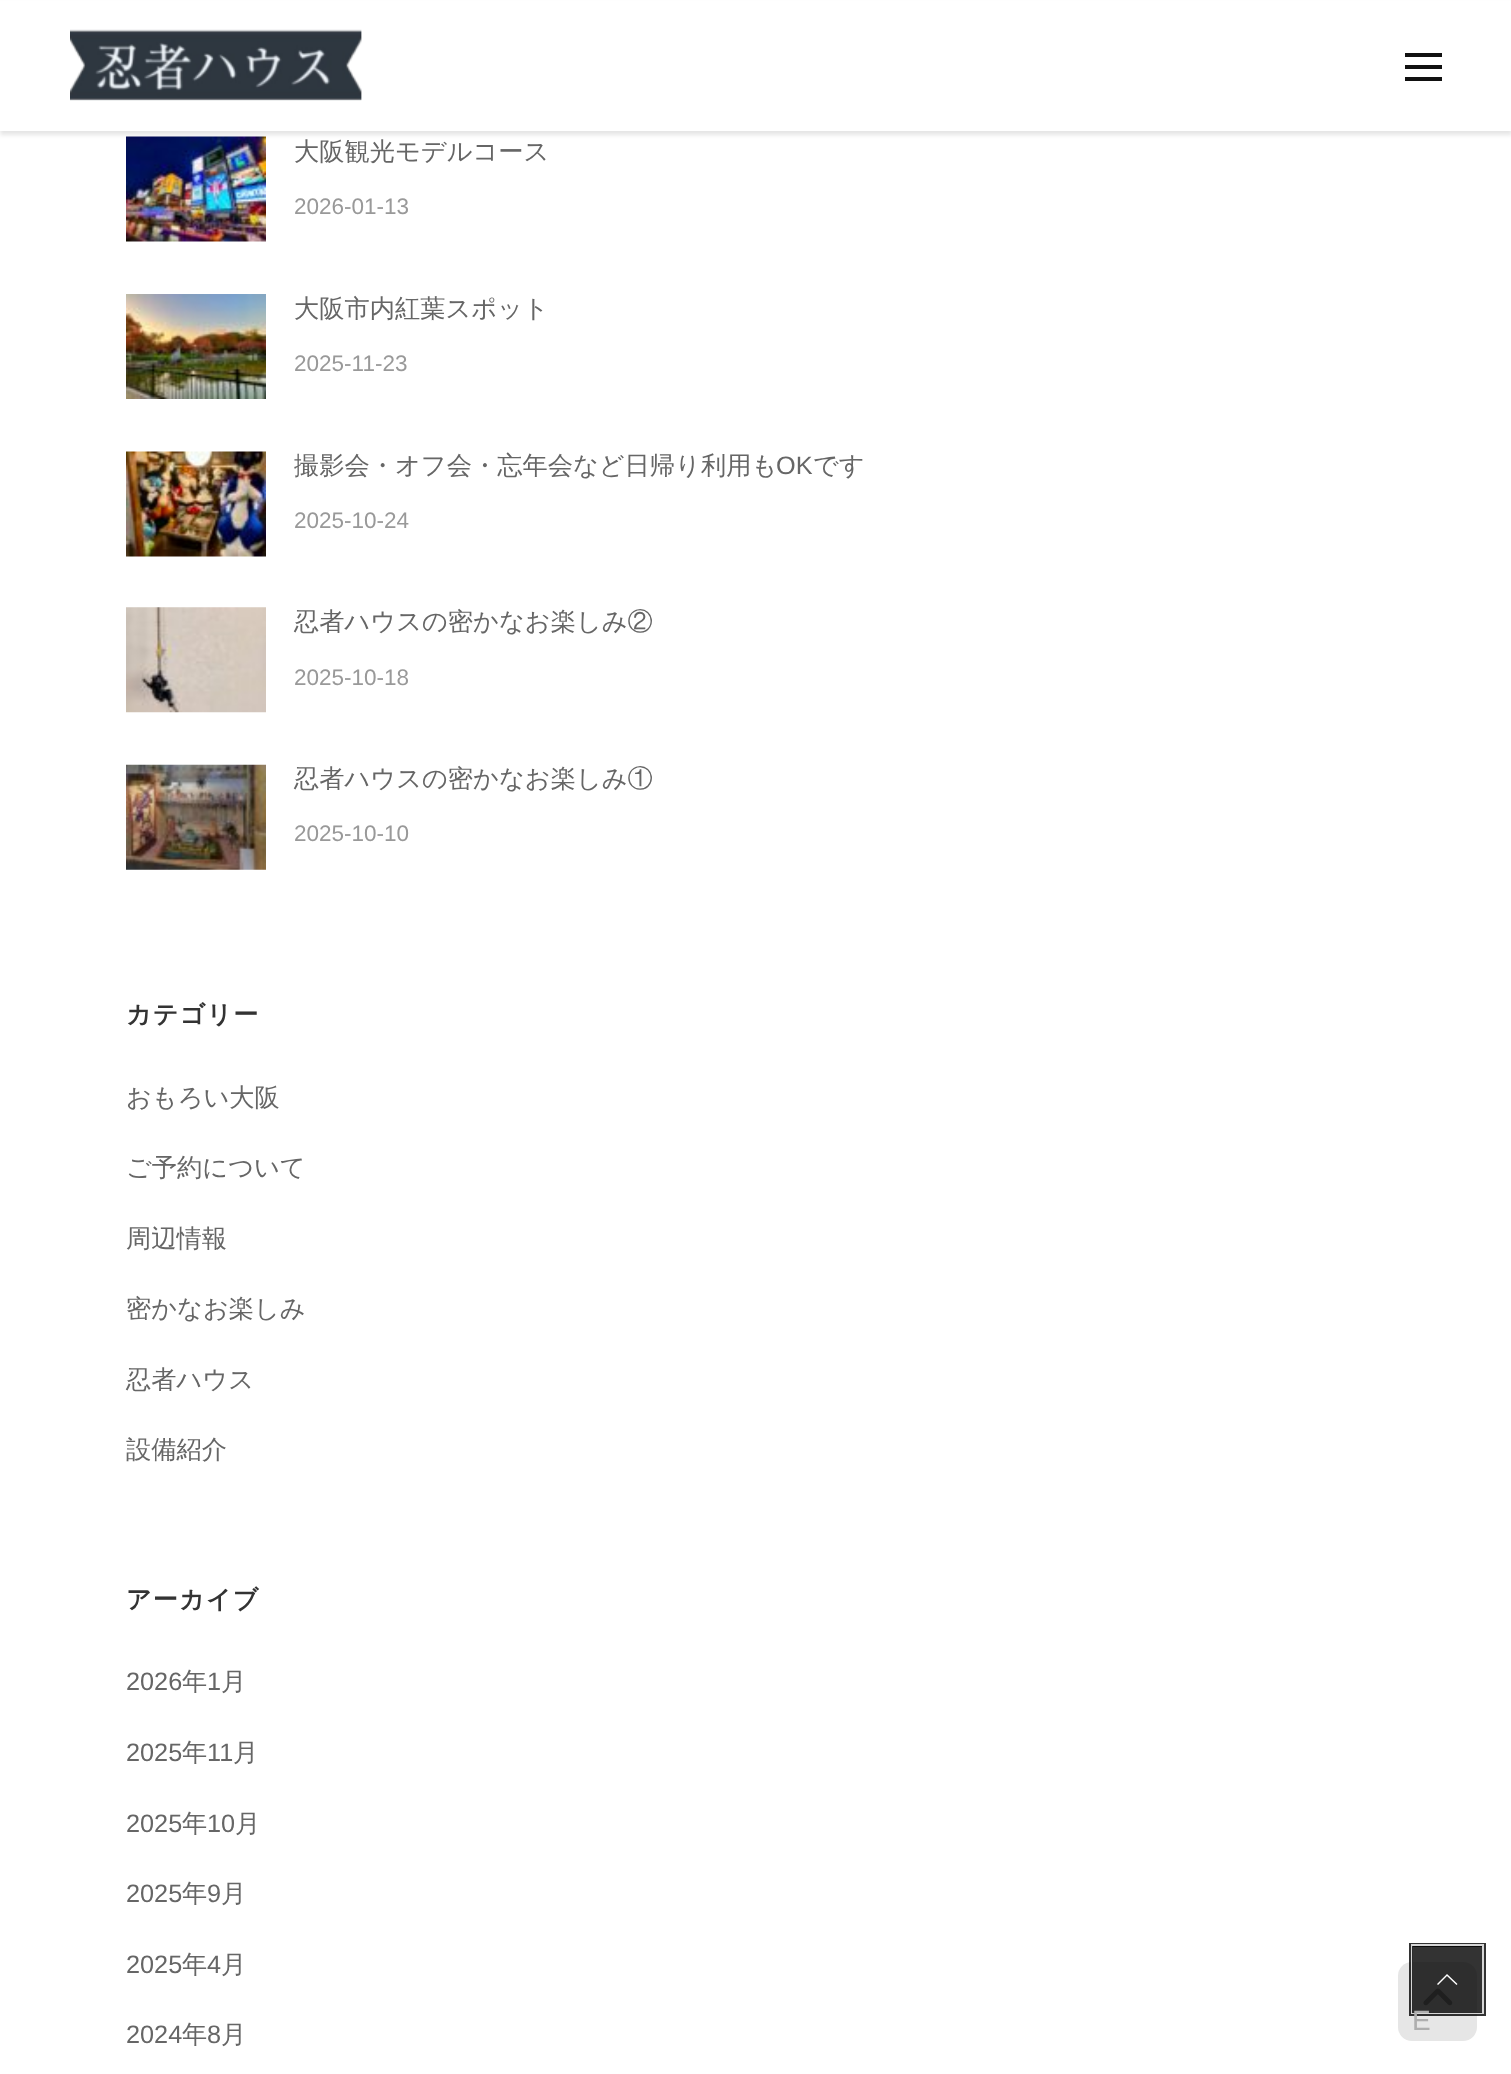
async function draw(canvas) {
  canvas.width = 1511;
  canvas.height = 2074;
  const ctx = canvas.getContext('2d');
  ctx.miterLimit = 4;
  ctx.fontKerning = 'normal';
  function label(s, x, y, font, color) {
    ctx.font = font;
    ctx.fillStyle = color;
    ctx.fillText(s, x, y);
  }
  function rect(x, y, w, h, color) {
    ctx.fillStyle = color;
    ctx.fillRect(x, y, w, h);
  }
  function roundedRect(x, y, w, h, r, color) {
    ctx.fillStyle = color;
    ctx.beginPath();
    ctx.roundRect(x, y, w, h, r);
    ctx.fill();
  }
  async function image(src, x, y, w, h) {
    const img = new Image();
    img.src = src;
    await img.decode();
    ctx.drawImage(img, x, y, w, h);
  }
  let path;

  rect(0, 0, 1511, 2074, '#fff');
  await image('assets/img2.png', 126, 136, 140, 106);
  ctx.fillStyle = '#0000001a';
  ctx.filter = 'blur(2px)';
  ctx.beginPath();
  ctx.rect(0, 4, 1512, 131);
  ctx.fill();
  ctx.filter = 'none';
  rect(0, 1, 1511, 130, '#fff');
  await image('assets/img1.png', 70, 29, 292, 72);
  rect(1405, 65, 37, 4, '#111');
  rect(1405, 53, 37, 4, '#111');
  rect(1405, 77, 37, 4, '#111');
  label('大阪観光モデルコース', 294, 160, '500 25.25px WenQuanYi Zen Hei', '#666');
  label('2026-01-13', 294, 214, '22.5px Liberation Sans', '#999');
  await image('assets/img3.png', 126, 294, 140, 105);
  label('大阪市内紅葉スポット', 294, 317, '500 25.25px WenQuanYi Zen Hei', '#666');
  label('2025-11-23', 294, 371, '22.5px Liberation Sans', '#999');
  await image('assets/img4.png', 126, 451, 140, 106);
  label('撮影会・オフ会・忘年会など日帰り利用も', 294, 474, '500 25.25px WenQuanYi Zen Hei', '#666');
  label('OK', 776, 474, '25.25px Liberation Sans', '#666');
  label('です', 813, 474, '500 25.25px WenQuanYi Zen Hei', '#666');
  label('2025-10-24', 294, 528, '22.5px Liberation Sans', '#999');
  await image('assets/img5.png', 126, 607, 140, 106);
  label('忍者ハウスの密かなお楽しみ②', 294, 630, '500 25.25px WenQuanYi Zen Hei', '#666');
  label('2025-10-18', 294, 685, '22.5px Liberation Sans', '#999');
  await image('assets/img6.png', 126, 764, 140, 106);
  label('忍者ハウスの密かなお楽しみ①', 294, 787, '500 25.25px WenQuanYi Zen Hei', '#666');
  label('2025-10-10', 294, 841, '22.5px Liberation Sans', '#999');
  ctx.letterSpacing = '1.25px';
  label('カテゴリー', 126, 1023, 'bold 25px WenQuanYi Zen Hei', '#333');
  ctx.letterSpacing = '0px';
  label('おもろい大阪', 126, 1106, '500 25.25px WenQuanYi Zen Hei', '#666');
  label('ご予約について', 126, 1176, '500 25.25px WenQuanYi Zen Hei', '#666');
  label('周辺情報', 126, 1247, '500 25.25px WenQuanYi Zen Hei', '#666');
  label('密かなお楽しみ', 126, 1317, '500 25.25px WenQuanYi Zen Hei', '#666');
  label('忍者ハウス', 126, 1388, '500 25.25px WenQuanYi Zen Hei', '#666');
  label('設備紹介', 126, 1458, '500 25.25px WenQuanYi Zen Hei', '#666');
  ctx.letterSpacing = '1.25px';
  label('アーカイブ', 126, 1608, 'bold 25px WenQuanYi Zen Hei', '#333');
  ctx.letterSpacing = '0px';
  label('2026', 126, 1690, '25.25px Liberation Sans', '#666');
  label('年', 182, 1690, '500 25.25px WenQuanYi Zen Hei', '#666');
  label('1', 207, 1690, '25.25px Liberation Sans', '#666');
  label('月', 221, 1690, '500 25.25px WenQuanYi Zen Hei', '#666');
  label('2025', 126, 1761, '25.25px Liberation Sans', '#666');
  label('年', 182, 1761, '500 25.25px WenQuanYi Zen Hei', '#666');
  label('11', 207, 1761, '25.25px Liberation Sans', '#666');
  label('月', 233, 1761, '500 25.25px WenQuanYi Zen Hei', '#666');
  label('2025', 126, 1832, '25.25px Liberation Sans', '#666');
  label('年', 182, 1832, '500 25.25px WenQuanYi Zen Hei', '#666');
  label('10', 207, 1832, '25.25px Liberation Sans', '#666');
  label('月', 235, 1832, '500 25.25px WenQuanYi Zen Hei', '#666');
  label('2025', 126, 1902, '25.25px Liberation Sans', '#666');
  label('年', 182, 1902, '500 25.25px WenQuanYi Zen Hei', '#666');
  label('9', 207, 1902, '25.25px Liberation Sans', '#666');
  label('月', 221, 1902, '500 25.25px WenQuanYi Zen Hei', '#666');
  label('2025', 126, 1973, '25.25px Liberation Sans', '#666');
  label('年', 182, 1973, '500 25.25px WenQuanYi Zen Hei', '#666');
  label('4', 207, 1973, '25.25px Liberation Sans', '#666');
  label('月', 221, 1973, '500 25.25px WenQuanYi Zen Hei', '#666');
  label('2024', 126, 2043, '25.25px Liberation Sans', '#666');
  label('年', 182, 2043, '500 25.25px WenQuanYi Zen Hei', '#666');
  label('8', 207, 2043, '25.25px Liberation Sans', '#666');
  label('月', 221, 2043, '500 25.25px WenQuanYi Zen Hei', '#666');
  roundedRect(1398, 1962, 79, 79, 14, '#e6e6e6');
  await image('assets/img7.png', 1423, 1988, 30, 18);
  ctx.strokeStyle = '#000000cc';
  ctx.lineWidth = 4;
  ctx.strokeRect(1411, 1945, 73, 69);
  ctx.strokeStyle = '#ffffffcc';
  ctx.lineWidth = 2;
  ctx.strokeRect(1412, 1945, 71, 68);
  rect(1412, 1946, 70, 67, '#000000cc');
  ctx.fillStyle = '#fff';
  path = new Path2D('M1457.5 1984L1456.5 1985L1447 1976L1438 1985L1437 1984L1447 1974Z');
  ctx.fill(path);
  label('E', 1412, 2030, '28px Liberation Sans', '#aeaeae');
}

draw(document.querySelector('canvas'));
